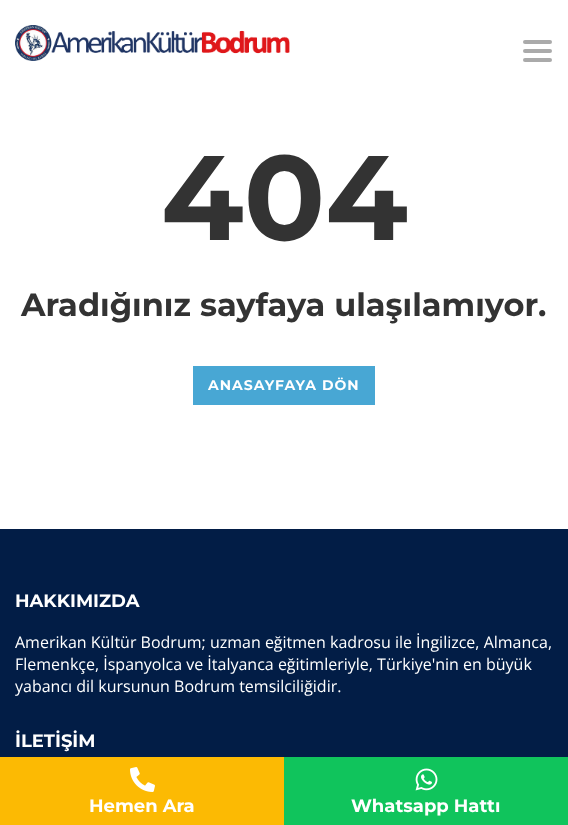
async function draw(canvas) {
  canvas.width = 568;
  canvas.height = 825;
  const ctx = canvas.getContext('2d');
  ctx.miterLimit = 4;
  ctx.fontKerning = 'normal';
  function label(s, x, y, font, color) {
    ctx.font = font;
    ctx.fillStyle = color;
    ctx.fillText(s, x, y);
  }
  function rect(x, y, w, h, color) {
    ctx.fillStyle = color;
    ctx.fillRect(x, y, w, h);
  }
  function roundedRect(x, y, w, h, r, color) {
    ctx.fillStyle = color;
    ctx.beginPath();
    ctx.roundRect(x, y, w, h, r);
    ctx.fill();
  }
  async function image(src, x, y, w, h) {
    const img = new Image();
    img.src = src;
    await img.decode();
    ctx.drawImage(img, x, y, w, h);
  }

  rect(0, 0, 568, 825, '#fff');
  await image('assets/img1.png', 15, 25, 275, 36);
  roundedRect(523, 40, 29, 4, 2, '#aaa');
  roundedRect(523, 49, 29, 4, 2, '#aaa');
  roundedRect(523, 58, 29, 4, 2, '#aaa');
  label('404', 161, 240, 'bold 120px Montserrat', '#333');
  label('Aradığınız sayfaya ulaşılamıyor.', 21, 316, 'bold 32px Montserrat', '#333');
  rect(193, 366, 182, 39, '#48a7d4');
  ctx.letterSpacing = '1px';
  label('ANASAYFAYA DÖN', 208, 390, 'bold 14px Montserrat', '#fff');
  rect(0, 529, 568, 228, '#021d46');
  ctx.letterSpacing = '0px';
  label('HAKKIMIZDA', 15, 607, 'bold 18px Montserrat', '#fff');
  label('Amerikan Kültür Bodrum; uzman eğitmen kadrosu ile İngilizce, Almanca,', 15, 648, '16px Open Sans', '#fff');
  label('Flemenkçe, İspanyolca ve İtalyanca eğitimleriyle, Türkiye\'nin en büyük', 15, 670, '16px Open Sans', '#fff');
  label('yabancı dil kursunun Bodrum temsilciliğidir.', 15, 692, '16px Open Sans', '#fff');
  label('İLETİŞİM', 15, 747, 'bold 18px Montserrat', '#fff');
  rect(0, 757, 284, 68, '#fcba03');
  await image('assets/img2.png', 130, 767, 25, 25);
  label('Hemen Ara', 89, 812, 'bold 18px Montserrat', '#fff');
  rect(284, 757, 284, 68, '#10c45c');
  await image('assets/img3.png', 415, 768, 23, 23);
  label('Whatsapp Hattı', 351, 812, 'bold 18px Montserrat', '#fff');
}

draw(document.querySelector('canvas'));
